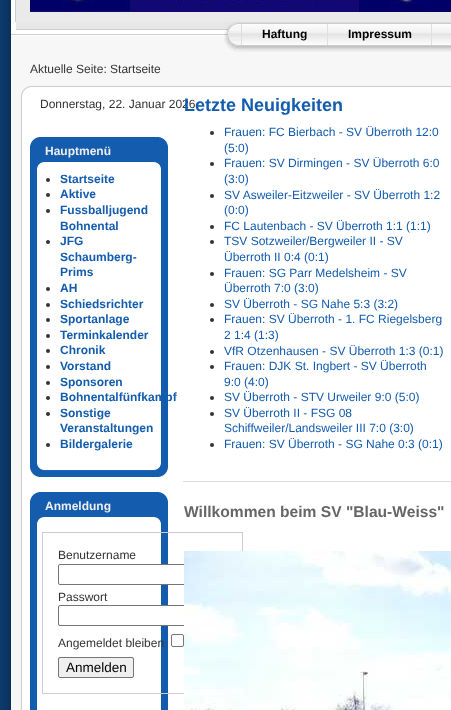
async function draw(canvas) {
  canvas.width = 451;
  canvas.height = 710;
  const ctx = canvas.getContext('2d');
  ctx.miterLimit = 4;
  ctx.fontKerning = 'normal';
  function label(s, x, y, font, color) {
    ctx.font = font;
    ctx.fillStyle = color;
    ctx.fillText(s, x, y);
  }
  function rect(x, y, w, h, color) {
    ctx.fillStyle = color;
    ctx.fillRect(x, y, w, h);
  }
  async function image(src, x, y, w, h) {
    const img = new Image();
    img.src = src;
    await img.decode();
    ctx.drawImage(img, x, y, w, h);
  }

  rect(0, 0, 451, 710, '#f7f7f7');
  await image('assets/img1.png', 0, 22, 11, 688);
  rect(16, 0, 435, 22, '#eaeaea');
  await image('assets/img2.png', 0, 0, 16, 22);
  await image('assets/img3.png', 30, 0, 421, 12);
  await image('assets/img4.png', 11, 22, 213, 14);
  rect(11, 22, 5, 8, '#fff');
  await image('assets/img5.png', 224, 22, 18, 30);
  await image('assets/img6.png', 242, 22, 209, 30);
  rect(327, 24, 1, 21, '#dfdfdf');
  label('Haftung', 262, 38, 'bold 12px Liberation Sans', '#000');
  rect(431, 24, 1, 21, '#dfdfdf');
  label('Impressum', 348, 38, 'bold 12px Liberation Sans', '#000');
  label('Aktuelle Seite: Startseite', 30, 73, '12px Liberation Sans', '#333');
  rect(22, 87, 429, 623, '#fff');
  rect(30, 86, 421, 1, '#cdcdcd');
  await image('assets/img7.png', 21, 86, 9, 10);
  rect(21, 96, 1, 614, '#ccc');
  label('Donnerstag, 22. Januar 2026', 40, 108, '12px Liberation Sans', '#333');
  await image('assets/img8.png', 44, 176, 124, 301);
  await image('assets/img9.png', 30, 176, 14, 301);
  await image('assets/img10.png', 44, 137, 124, 39);
  await image('assets/img11.png', 30, 137, 14, 39);
  label('Hauptmenü', 45, 155, 'bold 12px Liberation Sans', '#eee');
  ctx.fillStyle = '#333';
  ctx.beginPath();
  ctx.arc(48, 180, 2, 0, 2 * Math.PI);
  ctx.fill();
  label('Startseite', 60, 183, 'bold 12px Liberation Sans', '#135cae');
  ctx.fillStyle = '#333';
  ctx.beginPath();
  ctx.arc(48, 195, 2, 0, 2 * Math.PI);
  ctx.fill();
  label('Aktive', 60, 198, 'bold 12px Liberation Sans', '#135cae');
  ctx.fillStyle = '#333';
  ctx.beginPath();
  ctx.arc(48, 211, 2, 0, 2 * Math.PI);
  ctx.fill();
  label('Fussballjugend', 60, 214, 'bold 12px Liberation Sans', '#135cae');
  label('Bohnental', 60, 230, 'bold 12px Liberation Sans', '#135cae');
  ctx.fillStyle = '#333';
  ctx.beginPath();
  ctx.arc(48, 242, 2, 0, 2 * Math.PI);
  ctx.fill();
  label('JFG', 60, 245, 'bold 12px Liberation Sans', '#135cae');
  label('Schaumberg-', 60, 261, 'bold 12px Liberation Sans', '#135cae');
  label('Prims', 60, 276, 'bold 12px Liberation Sans', '#135cae');
  ctx.fillStyle = '#333';
  ctx.beginPath();
  ctx.arc(48, 289, 2, 0, 2 * Math.PI);
  ctx.fill();
  label('AH', 60, 292, 'bold 12px Liberation Sans', '#135cae');
  ctx.fillStyle = '#333';
  ctx.beginPath();
  ctx.arc(48, 305, 2, 0, 2 * Math.PI);
  ctx.fill();
  label('Schiedsrichter', 60, 308, 'bold 12px Liberation Sans', '#135cae');
  ctx.fillStyle = '#333';
  ctx.beginPath();
  ctx.arc(48, 320, 2, 0, 2 * Math.PI);
  ctx.fill();
  label('Sportanlage', 60, 323, 'bold 12px Liberation Sans', '#135cae');
  ctx.fillStyle = '#333';
  ctx.beginPath();
  ctx.arc(48, 336, 2, 0, 2 * Math.PI);
  ctx.fill();
  label('Terminkalender', 60, 339, 'bold 12px Liberation Sans', '#135cae');
  ctx.fillStyle = '#333';
  ctx.beginPath();
  ctx.arc(48, 351, 2, 0, 2 * Math.PI);
  ctx.fill();
  label('Chronik', 60, 354, 'bold 12px Liberation Sans', '#135cae');
  ctx.fillStyle = '#333';
  ctx.beginPath();
  ctx.arc(48, 367, 2, 0, 2 * Math.PI);
  ctx.fill();
  label('Vorstand', 60, 370, 'bold 12px Liberation Sans', '#135cae');
  ctx.fillStyle = '#333';
  ctx.beginPath();
  ctx.arc(48, 383, 2, 0, 2 * Math.PI);
  ctx.fill();
  label('Sponsoren', 60, 386, 'bold 12px Liberation Sans', '#135cae');
  ctx.fillStyle = '#333';
  ctx.beginPath();
  ctx.arc(48, 398, 2, 0, 2 * Math.PI);
  ctx.fill();
  label('Bohnentalfünfkampf', 60, 401, 'bold 12px Liberation Sans', '#135cae');
  ctx.fillStyle = '#333';
  ctx.beginPath();
  ctx.arc(48, 414, 2, 0, 2 * Math.PI);
  ctx.fill();
  label('Sonstige', 60, 417, 'bold 12px Liberation Sans', '#135cae');
  label('Veranstaltungen', 60, 432, 'bold 12px Liberation Sans', '#135cae');
  ctx.fillStyle = '#333';
  ctx.beginPath();
  ctx.arc(48, 445, 2, 0, 2 * Math.PI);
  ctx.fill();
  label('Bildergalerie', 60, 448, 'bold 12px Liberation Sans', '#135cae');
  rect(161, 531, 7, 179, '#135cae');
  rect(30, 531, 7, 179, '#135cae');
  await image('assets/img10.png', 44, 492, 124, 39);
  await image('assets/img11.png', 30, 492, 14, 39);
  label('Anmeldung', 45, 510, 'bold 12px Liberation Sans', '#eee');
  ctx.strokeStyle = '#ccc';
  ctx.strokeRect(42.5, 532.5, 200, 161);
  label('Benutzername', 58, 559, '12px Liberation Sans', '#333');
  ctx.fillStyle = '#fff';
  ctx.beginPath();
  ctx.roundRect(58.5, 564.5, 168, 20, 1.5);
  ctx.fill();
  ctx.strokeStyle = '#767676';
  ctx.stroke();
  label('Passwort', 58, 601, '12px Liberation Sans', '#333');
  ctx.fillStyle = '#fff';
  ctx.beginPath();
  ctx.roundRect(58.5, 605.5, 168, 20, 1.5);
  ctx.fill();
  ctx.stroke();
  label('Angemeldet bleiben', 58, 647, '12px Liberation Sans', '#333');
  ctx.beginPath();
  ctx.roundRect(171.5, 634.5, 12, 12, 1.5);
  ctx.stroke();
  ctx.fillStyle = '#efefef';
  ctx.beginPath();
  ctx.roundRect(58.5, 657.5, 75, 20, 1.5);
  ctx.fill();
  ctx.stroke();
  label('Anmelden', 66, 672, '13.5px Liberation Sans', '#000');
  label('Letzte Neuigkeiten', 184, 111, 'bold 18px Liberation Sans', '#135cae');
  ctx.fillStyle = '#333';
  ctx.beginPath();
  ctx.arc(212, 133, 2, 0, 2 * Math.PI);
  ctx.fill();
  label('Frauen: FC Bierbach - SV Überroth 12:0', 224, 136, '12px Liberation Sans', '#135cae');
  label('(5:0)', 224, 152, '12px Liberation Sans', '#135cae');
  ctx.fillStyle = '#333';
  ctx.beginPath();
  ctx.arc(212, 164, 2, 0, 2 * Math.PI);
  ctx.fill();
  label('Frauen: SV Dirmingen - SV Überroth 6:0', 224, 167, '12px Liberation Sans', '#135cae');
  label('(3:0)', 224, 183, '12px Liberation Sans', '#135cae');
  ctx.fillStyle = '#333';
  ctx.beginPath();
  ctx.arc(212, 196, 2, 0, 2 * Math.PI);
  ctx.fill();
  label('SV Asweiler-Eitzweiler - SV Überroth 1:2', 224, 199, '12px Liberation Sans', '#135cae');
  label('(0:0)', 224, 214, '12px Liberation Sans', '#135cae');
  ctx.fillStyle = '#333';
  ctx.beginPath();
  ctx.arc(212, 227, 2, 0, 2 * Math.PI);
  ctx.fill();
  label('FC Lautenbach - SV Überroth 1:1 (1:1)', 224, 230, '12px Liberation Sans', '#135cae');
  ctx.fillStyle = '#333';
  ctx.beginPath();
  ctx.arc(212, 242, 2, 0, 2 * Math.PI);
  ctx.fill();
  label('TSV Sotzweiler/Bergweiler II - SV', 224, 245, '12px Liberation Sans', '#135cae');
  label('Überroth II 0:4 (0:1)', 224, 261, '12px Liberation Sans', '#135cae');
  ctx.fillStyle = '#333';
  ctx.beginPath();
  ctx.arc(212, 274, 2, 0, 2 * Math.PI);
  ctx.fill();
  label('Frauen: SG Parr Medelsheim - SV', 224, 277, '12px Liberation Sans', '#135cae');
  label('Überroth 7:0 (3:0)', 224, 292, '12px Liberation Sans', '#135cae');
  ctx.fillStyle = '#333';
  ctx.beginPath();
  ctx.arc(212, 305, 2, 0, 2 * Math.PI);
  ctx.fill();
  label('SV Überroth - SG Nahe 5:3 (3:2)', 224, 308, '12px Liberation Sans', '#135cae');
  ctx.fillStyle = '#333';
  ctx.beginPath();
  ctx.arc(212, 320, 2, 0, 2 * Math.PI);
  ctx.fill();
  label('Frauen: SV Überroth - 1. FC Riegelsberg', 224, 323, '12px Liberation Sans', '#135cae');
  label('2 1:4 (1:3)', 224, 339, '12px Liberation Sans', '#135cae');
  ctx.fillStyle = '#333';
  ctx.beginPath();
  ctx.arc(212, 352, 2, 0, 2 * Math.PI);
  ctx.fill();
  label('VfR Otzenhausen - SV Überroth 1:3 (0:1)', 224, 355, '12px Liberation Sans', '#135cae');
  ctx.fillStyle = '#333';
  ctx.beginPath();
  ctx.arc(212, 367, 2, 0, 2 * Math.PI);
  ctx.fill();
  label('Frauen: DJK St. Ingbert - SV Überroth', 224, 370, '12px Liberation Sans', '#135cae');
  label('9:0 (4:0)', 224, 386, '12px Liberation Sans', '#135cae');
  ctx.fillStyle = '#333';
  ctx.beginPath();
  ctx.arc(212, 398, 2, 0, 2 * Math.PI);
  ctx.fill();
  label('SV Überroth - STV Urweiler 9:0 (5:0)', 224, 401, '12px Liberation Sans', '#135cae');
  ctx.fillStyle = '#333';
  ctx.beginPath();
  ctx.arc(212, 414, 2, 0, 2 * Math.PI);
  ctx.fill();
  label('SV Überroth II - FSG 08', 224, 417, '12px Liberation Sans', '#135cae');
  label('Schiffweiler/Landsweiler III 7:0 (3:0)', 224, 432, '12px Liberation Sans', '#135cae');
  ctx.fillStyle = '#333';
  ctx.beginPath();
  ctx.arc(212, 445, 2, 0, 2 * Math.PI);
  ctx.fill();
  label('Frauen: SV Überroth - SG Nahe 0:3 (0:1)', 224, 448, '12px Liberation Sans', '#135cae');
  rect(183, 481, 268, 1, '#ddd');
  label('Willkommen beim SV "Blau-Weiss"', 184, 517, 'bold 15.6px Liberation Sans', '#666');
  await image('assets/img12.png', 184, 551, 267, 159);
}

draw(document.querySelector('canvas'));
